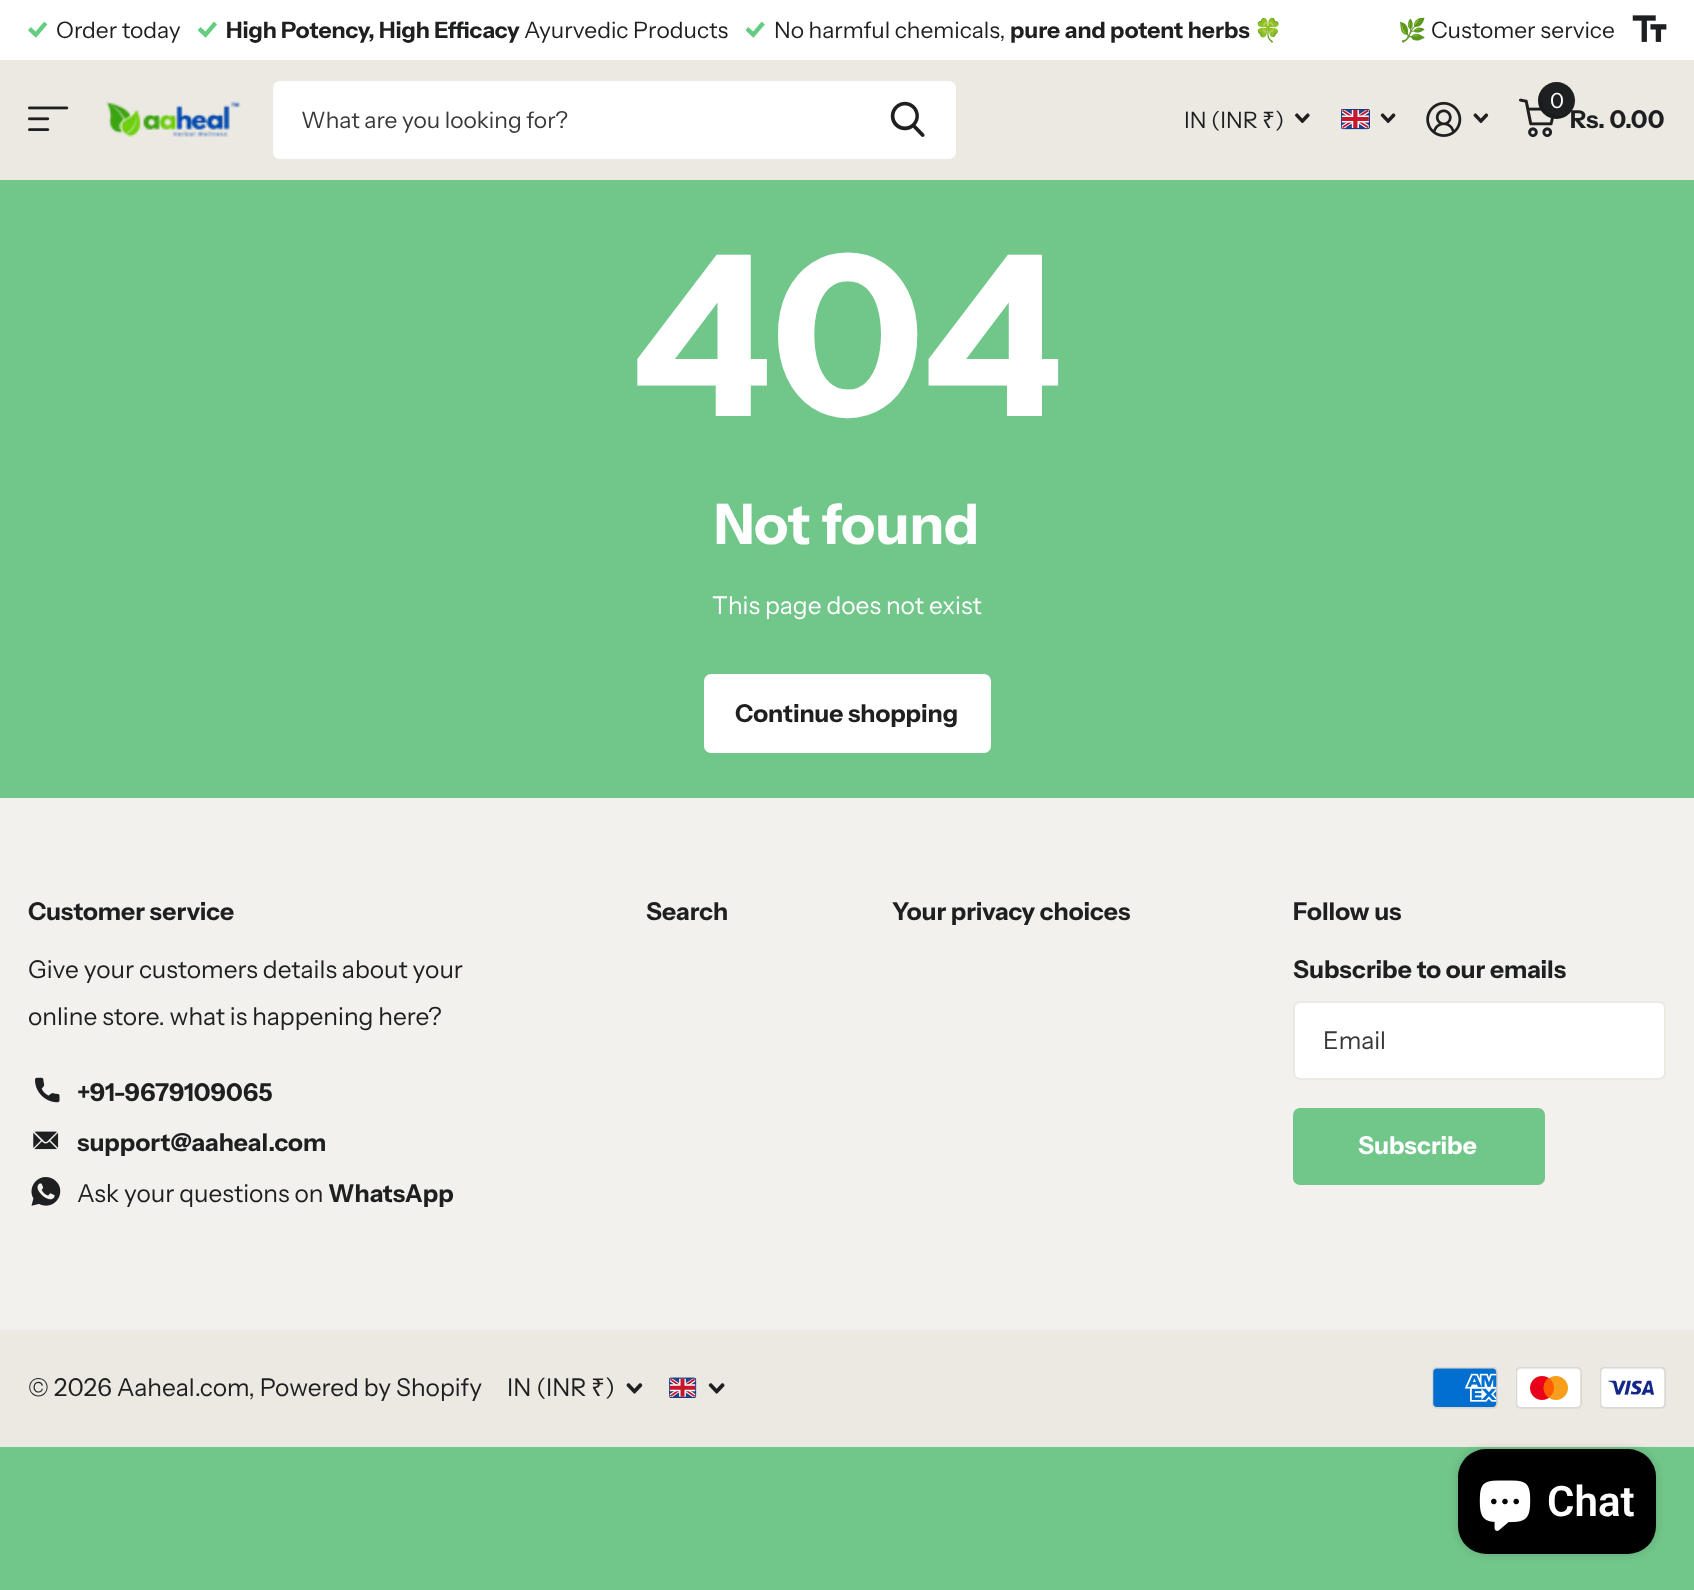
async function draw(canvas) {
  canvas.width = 1694;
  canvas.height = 1590;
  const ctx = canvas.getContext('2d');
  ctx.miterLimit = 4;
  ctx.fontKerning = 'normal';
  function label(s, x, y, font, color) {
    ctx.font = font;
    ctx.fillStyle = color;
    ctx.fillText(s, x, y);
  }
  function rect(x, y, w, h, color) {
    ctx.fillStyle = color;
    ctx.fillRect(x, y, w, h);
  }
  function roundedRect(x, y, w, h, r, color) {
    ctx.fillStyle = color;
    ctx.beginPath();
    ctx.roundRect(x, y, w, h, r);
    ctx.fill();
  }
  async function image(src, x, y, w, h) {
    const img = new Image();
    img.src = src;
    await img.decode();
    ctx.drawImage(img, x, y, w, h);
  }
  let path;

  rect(0, 0, 1694, 1590, '#71c68a');
  rect(0, 0, 1694, 60, '#fff');
  await image('assets/img1.png', 28, 21, 20, 17);
  label('Order today', 56, 38, '22.75px Instrument Sans', '#1e1f20');
  await image('assets/img2.png', 198, 21, 19, 17);
  label('High Potency, High Efficacy', 226, 38, 'bold 22.75px Instrument Sans', '#1e1f20');
  label('Ayurvedic Products', 524, 38, '22.75px Instrument Sans', '#1e1f20');
  await image('assets/img3.png', 746, 21, 19, 17);
  label('No harmful chemicals,', 774, 38, '22.75px Instrument Sans', '#1e1f20');
  label('pure and potent herbs', 1010, 38, 'bold 22.75px Instrument Sans', '#1e1f20');
  label('🍀', 1254, 38, '22.75px Noto Color Emoji', '#1e1f20');
  label('🌿', 1398, 38, '22.75px Noto Color Emoji', '#1e1f20');
  label('Customer service', 1431, 38, '22.75px Instrument Sans', '#1e1f20');
  await image('assets/img4.png', 1632, 15, 35, 27);
  rect(0, 60, 1694, 120, '#ece8e2');
  await image('assets/img5.png', 28, 106, 41, 25);
  await image('assets/img6.png', 106, 101, 135, 36);
  roundedRect(273, 81, 683, 78, 7, '#fff');
  label('What are you looking for?', 301, 128, '22.75px Instrument Sans', '#37393a');
  await image('assets/img7.png', 890, 101, 35, 36);
  label('IN (INR', 1184, 128, '22.75px Instrument Sans', '#1e1f20');
  label('₹', 1262, 128, '22.75px Noto Sans', '#1e1f20');
  label(')', 1275, 128, '22.75px Instrument Sans', '#1e1f20');
  await image('assets/img8.png', 1295, 113, 15, 11);
  await image('assets/img9.png', 1341, 109, 29, 21);
  await image('assets/img10.png', 1380, 113, 16, 11);
  await image('assets/img11.png', 1426, 101, 36, 36);
  await image('assets/img12.png', 1473, 113, 16, 11);
  await image('assets/img13.png', 1519, 98, 35, 39);
  ctx.beginPath();
  ctx.arc(1556.5, 100.5, 18.5, 0, 2 * Math.PI);
  ctx.fill();
  ctx.fillStyle = '#0000001a';
  path = new Path2D('M1569.5 113.5C1567 115 1564 116 1560 116C1542 116 1537.5 95.5 1546 85C1536.5 91.5 1535 105.5 1543.5 113.5C1550.5 121 1562.5 120.5 1569.5 113.5Z');
  ctx.fill(path);
  label('0', 1550, 108, '21px Instrument Sans', '#fff');
  label('Rs. 0.00', 1570, 128, 'bold 24.5px Instrument Sans', '#1e1f20');
  label('404', 632, 416, 'bold 224px Instrument Sans', '#fff');
  label('Not found', 714, 544, 'bold 56px Instrument Sans', '#fff');
  label('This page does not exist', 712, 614, '24.5px Instrument Sans', '#fff');
  roundedRect(704, 674, 287, 79, 7, '#fff');
  label('Continue shopping', 735, 722, 'bold 24.5px Instrument Sans', '#1e1f20');
  rect(0, 798, 1694, 532, '#f3f1ee');
  label('Customer service', 28, 920, 'bold 24.5px Instrument Sans', '#1e1f20');
  label('Give your customers details about your', 28, 978, '24.5px Instrument Sans', '#1e1f20');
  label('online store. what is happening here?', 28, 1025, '24.5px Instrument Sans', '#1e1f20');
  await image('assets/img14.png', 35, 1077, 25, 26);
  label('+91-9679109065', 77, 1101, 'bold 24.5px Instrument Sans', '#1e1f20');
  await image('assets/img15.png', 33, 1131, 26, 19);
  label('support@aaheal.com', 77, 1151, 'bold 24.5px Instrument Sans', '#1e1f20');
  await image('assets/img16.png', 31, 1177, 30, 29);
  label('Ask your questions on', 77, 1202, '24.5px Instrument Sans', '#1e1f20');
  label('WhatsApp', 328, 1202, 'bold 24.5px Instrument Sans', '#1e1f20');
  label('Search', 646, 920, 'bold 24.5px Instrument Sans', '#1e1f20');
  label('Your privacy choices', 892, 920, 'bold 24.5px Instrument Sans', '#1e1f20');
  label('Follow us', 1293, 920, 'bold 24.5px Instrument Sans', '#1e1f20');
  label('Subscribe to our emails', 1293, 978, 'bold 24.5px Instrument Sans', '#1e1f20');
  ctx.fillStyle = '#fff';
  ctx.beginPath();
  ctx.roundRect(1294, 1002, 371, 77, 6);
  ctx.fill();
  ctx.strokeStyle = '#ece8e2';
  ctx.lineWidth = 2;
  ctx.stroke();
  label('Email', 1323, 1049, '24.5px Instrument Sans', '#37393a');
  roundedRect(1293, 1108, 252, 77, 7, '#71c68a');
  label('Subscribe', 1358, 1154, 'bold 24.5px Instrument Sans', '#fff');
  rect(0, 1330, 1694, 117, '#ece8e2');
  label('© 2026 Aaheal.com, Powered by Shopify', 28, 1396, '24.5px Instrument Sans', '#1e1f20');
  label('IN (INR', 507, 1396, '24.5px Instrument Sans', '#1e1f20');
  label('₹', 591, 1396, '24.5px Noto Sans', '#1e1f20');
  label(')', 605, 1396, '24.5px Instrument Sans', '#1e1f20');
  await image('assets/img17.png', 626, 1383, 17, 11);
  await image('assets/img18.png', 669, 1377, 28, 21);
  await image('assets/img19.png', 708, 1383, 17, 11);
  await image('assets/img20.png', 1432, 1367, 66, 42);
  await image('assets/img21.png', 1516, 1367, 66, 42);
  await image('assets/img22.png', 1600, 1367, 66, 42);
  ctx.fillStyle = '#00000026';
  ctx.filter = 'blur(4.5px)';
  ctx.beginPath();
  ctx.roundRect(1458, 1449, 198, 105, 28);
  ctx.fill();
  ctx.filter = 'none';
  roundedRect(1458, 1449, 198, 105, 28, '#000');
  await image('assets/img23.png', 1479, 1480, 52, 51);
  label('Chat', 1547, 1516, '600 42px Roboto', '#fff');
}

draw(document.querySelector('canvas'));
